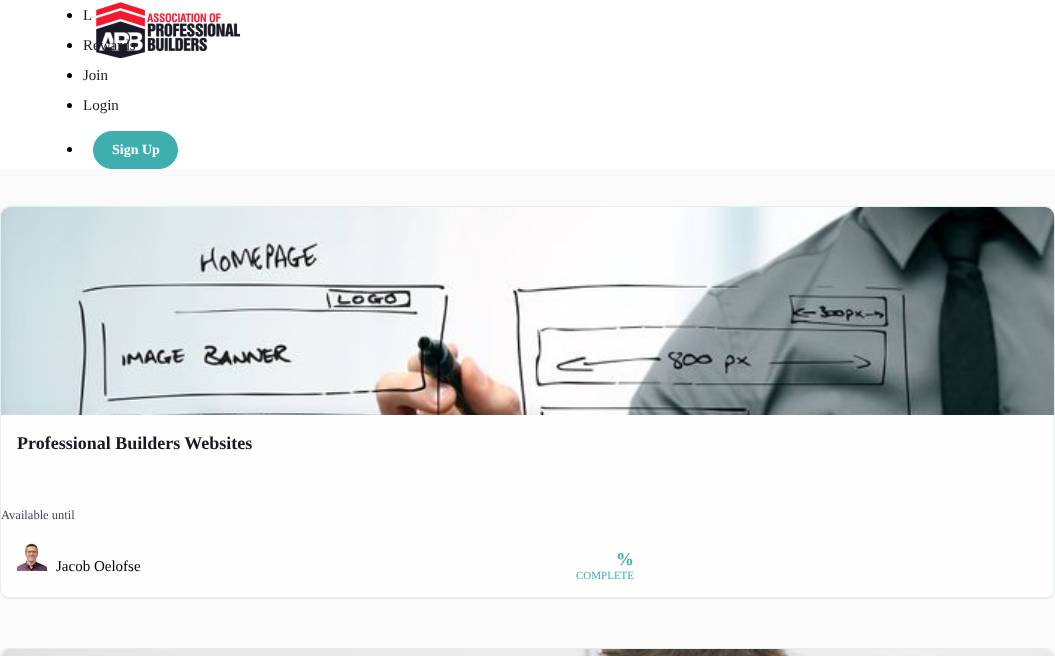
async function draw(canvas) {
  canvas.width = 1055;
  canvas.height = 656;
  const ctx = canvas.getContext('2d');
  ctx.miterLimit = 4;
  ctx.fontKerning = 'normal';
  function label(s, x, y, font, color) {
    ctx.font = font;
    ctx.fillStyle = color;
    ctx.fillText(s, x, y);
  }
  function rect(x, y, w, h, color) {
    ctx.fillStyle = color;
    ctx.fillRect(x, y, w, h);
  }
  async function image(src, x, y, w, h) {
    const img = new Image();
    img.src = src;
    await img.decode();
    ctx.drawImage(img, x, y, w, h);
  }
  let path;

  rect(0, 0, 1055, 656, '#fafafa');
  rect(0, 0, 1055, 169, '#fff');
  label('Rewards', 83, 50, '15px Liberation Serif', '#191925');
  await image('assets/img1.png', 96, 2, 145, 57);
  ctx.fillStyle = '#000';
  ctx.beginPath();
  ctx.arc(69.5, 15.5, 2.5, 0, 2 * Math.PI);
  ctx.fill();
  label('L', 83, 20, '15px Liberation Serif', '#191925');
  ctx.fillStyle = '#000';
  ctx.beginPath();
  ctx.arc(69.5, 45.5, 2.5, 0, 2 * Math.PI);
  ctx.fill();
  ctx.beginPath();
  ctx.arc(69.5, 75.5, 2.5, 0, 2 * Math.PI);
  ctx.fill();
  label('Join', 83, 80, '15px Liberation Serif', '#191925');
  ctx.fillStyle = '#000';
  ctx.beginPath();
  ctx.arc(69.5, 105.5, 2.5, 0, 2 * Math.PI);
  ctx.fill();
  label('Login', 83, 110, '15px Liberation Serif', '#191925');
  ctx.fillStyle = '#000';
  ctx.beginPath();
  ctx.arc(69.5, 149.5, 2.5, 0, 2 * Math.PI);
  ctx.fill();
  ctx.fillStyle = '#3eaeae';
  ctx.beginPath();
  ctx.roundRect(93.5, 131.5, 84, 37, 18.5);
  ctx.fill();
  ctx.strokeStyle = '#3eaeae';
  ctx.stroke();
  label('Sign Up', 112, 154, 'bold 14px Liberation Serif', '#fff');
  ctx.fillStyle = '#e5eded';
  path = new Path2D('M0 589C0 594 3 599 9 599H1046C1052 599 1055 594 1055 589C1055 594 1051 598 1046 598H9C4 598 0 594 0 589Z');
  ctx.fill(path);
  ctx.fillStyle = '#ffffffb3';
  ctx.beginPath();
  ctx.roundRect(0.5, 206.5, 1054, 391, 8.5);
  ctx.fill();
  ctx.strokeStyle = '#e5eded';
  ctx.stroke();
  await image('assets/img2.png', 1, 207, 1053, 208);
  label('Professional Builders Websites', 17, 449, 'bold 18px Liberation Serif', '#191925');
  label('Available until', 1, 519, '12.5px Liberation Serif', '#424262');
  await image('assets/img3.png', 17, 541, 30, 30);
  label('Jacob Oelofse', 56, 571, '15px Liberation Serif', '#000');
  label('%', 616, 565, 'bold 18px Liberation Serif', '#3eaeae');
  label('COMPLETE', 576, 579, '11px Liberation Serif', '#3eaeae');
  ctx.fillStyle = '#ffffffb3';
  ctx.beginPath();
  ctx.roundRect(0.5, 648.5, 1054, 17, 8.5);
  ctx.fill();
  ctx.stroke();
  await image('assets/img4.png', 1, 649, 1053, 7);
}

draw(document.querySelector('canvas'));
